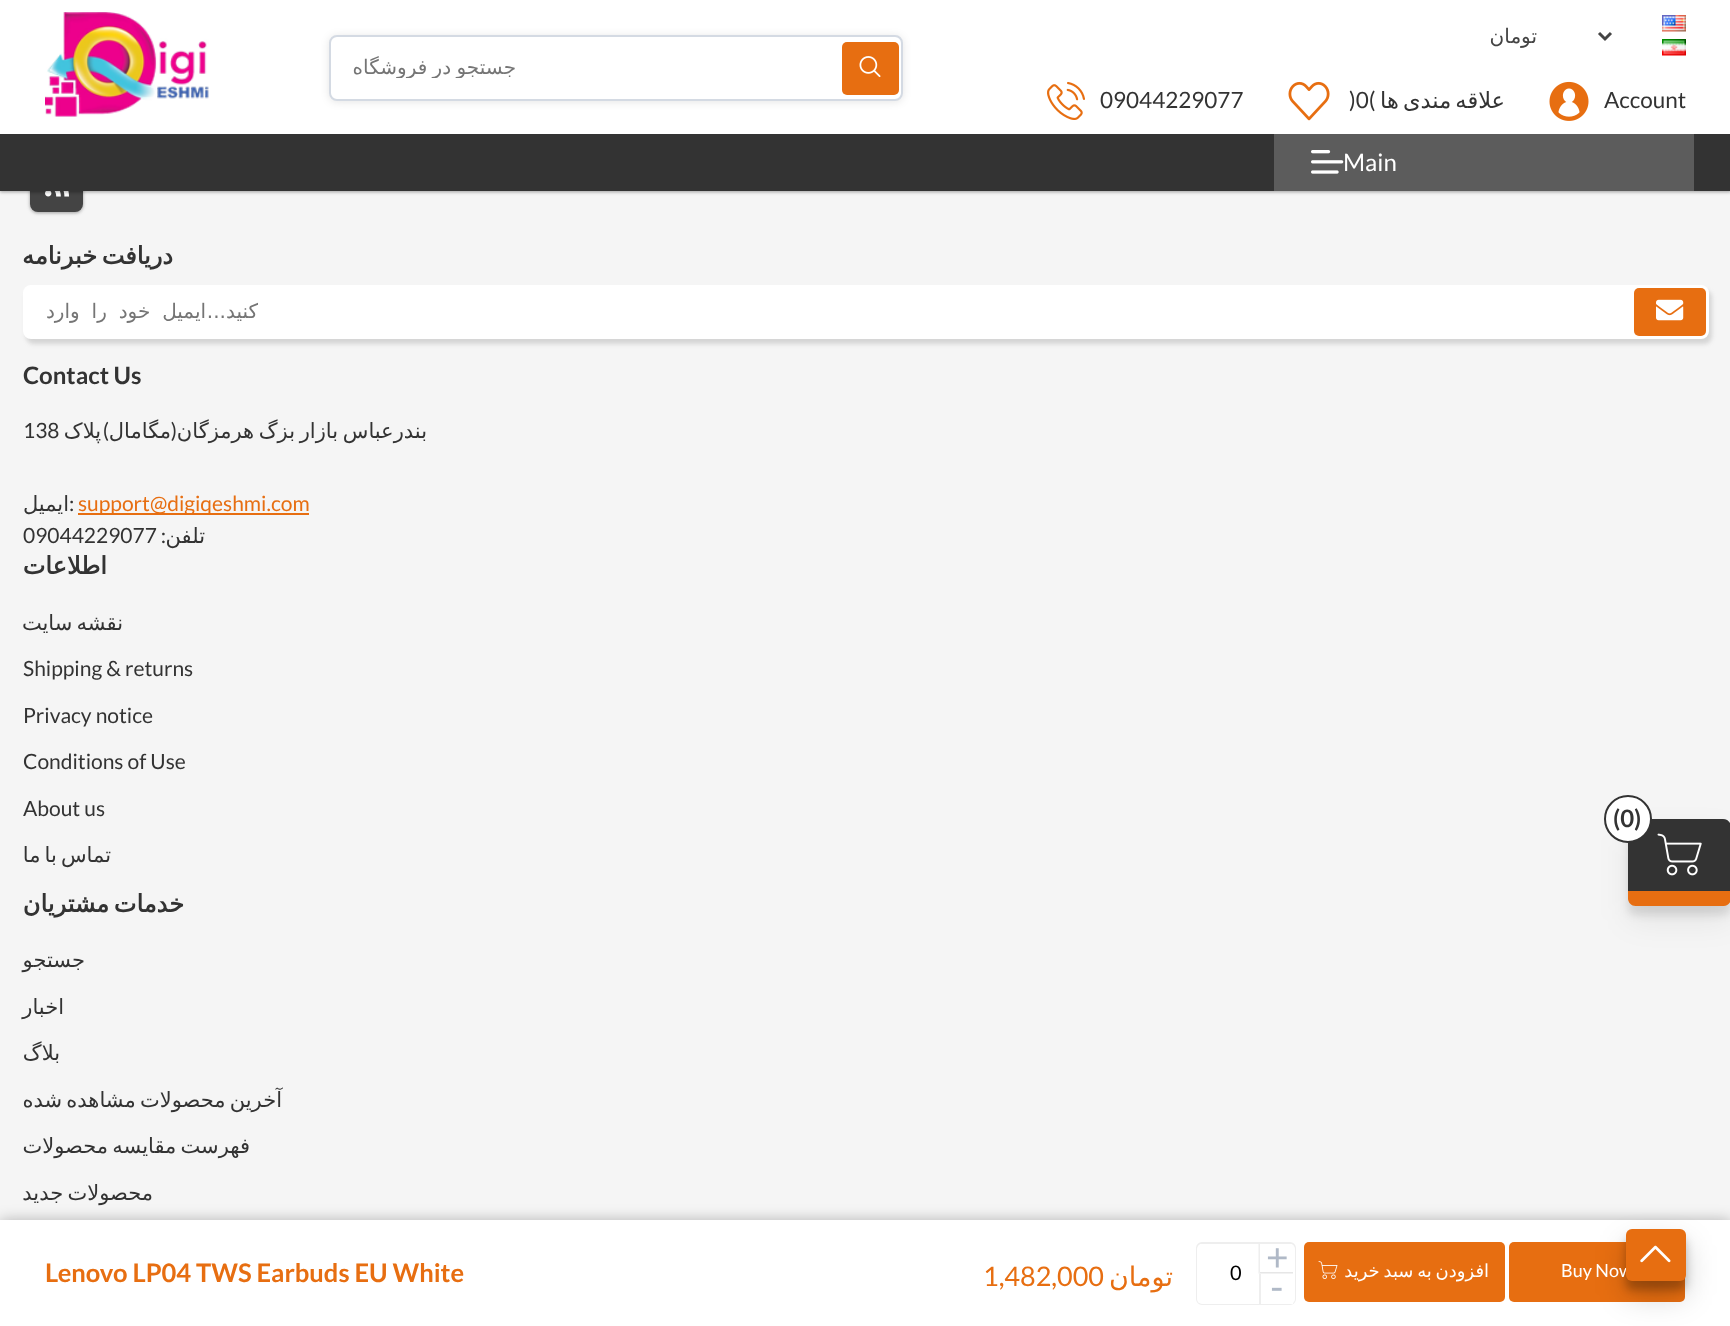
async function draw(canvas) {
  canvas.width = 1730;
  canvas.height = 1326;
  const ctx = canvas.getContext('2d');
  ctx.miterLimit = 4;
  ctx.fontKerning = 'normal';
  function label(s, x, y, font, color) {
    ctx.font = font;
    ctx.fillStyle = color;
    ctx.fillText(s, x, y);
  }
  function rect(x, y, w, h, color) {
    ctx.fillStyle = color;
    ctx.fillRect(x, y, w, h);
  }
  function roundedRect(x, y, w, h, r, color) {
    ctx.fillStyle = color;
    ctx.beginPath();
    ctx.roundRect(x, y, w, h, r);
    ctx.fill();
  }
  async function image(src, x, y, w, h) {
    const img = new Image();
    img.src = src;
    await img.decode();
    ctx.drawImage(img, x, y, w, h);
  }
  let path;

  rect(0, 0, 1730, 1326, '#f5f5f5');
  ctx.fillStyle = '#0000003d';
  ctx.filter = 'blur(1.5px)';
  ctx.beginPath();
  ctx.roundRect(30, 161, 53, 52, 8);
  ctx.fill();
  ctx.filter = 'none';
  ctx.fillStyle = '#0000001f';
  ctx.filter = 'blur(2px)';
  ctx.beginPath();
  ctx.roundRect(30, 161, 53, 52, 8);
  ctx.fill();
  ctx.filter = 'none';
  roundedRect(30, 159, 53, 53, 8, '#444');
  await image('assets/img10.png', 45, 191, 24, 6);
  ctx.fillStyle = '#0000003d';
  ctx.filter = 'blur(1.5px)';
  ctx.beginPath();
  ctx.rect(0, 2, 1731, 190);
  ctx.fill();
  ctx.filter = 'none';
  ctx.fillStyle = '#0000001f';
  ctx.filter = 'blur(2px)';
  ctx.beginPath();
  ctx.rect(0, 2, 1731, 190);
  ctx.fill();
  ctx.filter = 'none';
  rect(0, 0, 1730, 134, '#fff');
  await image('assets/img1.png', 1662, 15, 24, 17);
  await image('assets/img2.png', 1662, 39, 24, 17);
  path = new Path2D('M1599 33L1605 39L1611 33');
  ctx.strokeStyle = '#444';
  ctx.lineWidth = 3;
  ctx.stroke(path);
  ctx.direction = 'rtl';
  label('تومان', 1537, 43, '20px DejaVu Sans', '#444');
  ctx.direction = 'ltr';
  label('Account', 1604, 108, '22.5px Lato', '#333');
  await image('assets/img3.png', 1549, 81, 40, 40);
  ctx.wordSpacing = '-3px';
  ctx.direction = 'rtl';
  label('علاقه مندی ها', 1505, 108, '22.5px DejaVu Sans', '#333');
  ctx.wordSpacing = '0px';
  ctx.direction = 'ltr';
  label(')0(', 1349, 108, '22.5px Lato', '#333');
  await image('assets/img4.png', 1288, 81, 42, 40);
  label('09044229077', 1100, 108, '22.5px Lato', '#333');
  await image('assets/img5.png', 1047, 81, 38, 39);
  ctx.fillStyle = '#0000001a';
  ctx.filter = 'blur(4.5px)';
  ctx.beginPath();
  ctx.roundRect(1628, 828, 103, 87, 8);
  ctx.fill();
  ctx.filter = 'none';
  ctx.fillStyle = '#00000012';
  ctx.filter = 'blur(15px)';
  ctx.beginPath();
  ctx.roundRect(1628, 834, 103, 87, 8);
  ctx.fill();
  ctx.filter = 'none';
  ctx.fillStyle = '#333';
  path = new Path2D('M1636 819H1723C1727.5 819 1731 822.5 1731 827V891H1628V827C1628 822.5 1631.5 819 1636 819Z');
  ctx.fill(path);
  await image('assets/img6.png', 1657, 833, 45, 43);
  ctx.fillStyle = '#fff';
  ctx.beginPath();
  ctx.arc(1628, 819, 23, 0, 2 * Math.PI);
  ctx.fill();
  ctx.strokeStyle = '#333';
  ctx.lineWidth = 2;
  ctx.stroke();
  label('(0)', 1613, 827, 'bold 24px Lato', '#333');
  ctx.fillStyle = '#e76e11';
  path = new Path2D('M1628 891H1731V898.5C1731 902.5 1727.5 906 1723.5 906H1635.5C1631.5 906 1628 902.5 1628 898.5Z');
  ctx.fill(path);
  ctx.fillStyle = '#0000001a';
  ctx.filter = 'blur(4px)';
  ctx.beginPath();
  ctx.roundRect(329, 36, 574, 66, 8);
  ctx.fill();
  ctx.filter = 'none';
  ctx.fillStyle = '#fff';
  ctx.beginPath();
  ctx.roundRect(330, 36, 572, 64, 7);
  ctx.fill();
  ctx.strokeStyle = '#d4dae3';
  ctx.stroke();
  roundedRect(842, 42, 57, 53, 5, '#e76e11');
  await image('assets/img7.png', 859, 56, 22, 21);
  ctx.save();
  ctx.beginPath();
  ctx.rect(353, 56, 526, 22);
  ctx.clip();
  ctx.wordSpacing = '-1px';
  ctx.direction = 'rtl';
  label('جستجو در فروشگاه', 516, 74, '20px DejaVu Sans', '#757575');
  ctx.restore();
  await image('assets/img8.png', 45, 12, 164, 105);
  rect(0, 134, 1730, 57, '#333');
  rect(1274, 134, 420, 57, '#5c5c5c');
  label('Main', 1343, 171, '24px Lato', '#fff');
  await image('assets/img9.png', 1311, 150, 33, 24);
  ctx.wordSpacing = '-3px';
  ctx.direction = 'rtl';
  label('دریافت خبرنامه', 173, 264, 'bold 24px DejaVu Sans', '#333');
  ctx.fillStyle = '#77767940';
  ctx.filter = 'blur(2px)';
  ctx.beginPath();
  ctx.roundRect(26, 290, 1686, 54, 8);
  ctx.fill();
  ctx.filter = 'none';
  roundedRect(23, 285, 1686, 54, 8, '#fff');
  roundedRect(1634, 288, 72, 48, 5, '#e76e11');
  await image('assets/img11.png', 1656, 299, 28, 22);
  ctx.wordSpacing = '0px';
  label('کنید...', 258, 318, '20px DejaVu Sans', '#757575');
  ctx.wordSpacing = '5.5px';
  label('ایمیل خود را وارد', 206, 318, '20px DejaVu Sans', '#757575');
  ctx.wordSpacing = '0px';
  ctx.direction = 'ltr';
  label('Contact Us', 23, 384, 'bold 24px Lato', '#333');
  ctx.wordSpacing = '-2px';
  ctx.direction = 'rtl';
  label('بندرعباس بازار بزگ هرمزگان', 427, 438, '21px DejaVu Sans', '#333');
  ctx.wordSpacing = '0px';
  label('(', 177, 438, '21px Lato', '#333');
  label('مگامال', 171, 438, '21px DejaVu Sans', '#333');
  label(')', 109, 438, '21px Lato', '#333');
  label('پلاک', 101, 438, '21px DejaVu Sans', '#333');
  ctx.direction = 'ltr';
  label('138', 23, 438, '21px Lato', '#333');
  rect(78, 513, 231, 2, '#e76e11');
  label('support@digiqeshmi.com', 78, 511, '21px Lato', '#e76e11');
  label(':', 69, 511, '21px Lato', '#333');
  ctx.direction = 'rtl';
  label('ایمیل', 69, 511, '21px DejaVu Sans', '#333');
  label('تلفن', 205, 543, '21px DejaVu Sans', '#333');
  label(':', 166, 543, '21px Lato', '#333');
  ctx.direction = 'ltr';
  label('09044229077', 23, 543, '21px Lato', '#333');
  ctx.direction = 'rtl';
  label('اطلاعات', 107, 574, 'bold 24px DejaVu Sans', '#333');
  ctx.wordSpacing = '-2.5px';
  label('نقشه سایت', 123, 630, '21px DejaVu Sans', '#333');
  ctx.wordSpacing = '0px';
  ctx.direction = 'ltr';
  label('Shipping & returns', 23, 676, '21px Lato', '#333');
  label('Privacy notice', 23, 723, '21px Lato', '#333');
  label('Conditions of Use', 23, 769, '21px Lato', '#333');
  label('About us', 23, 816, '21px Lato', '#333');
  ctx.wordSpacing = '-2.5px';
  ctx.direction = 'rtl';
  label('تماس با ما', 111, 862, '21px DejaVu Sans', '#333');
  ctx.wordSpacing = '-3px';
  label('خدمات مشتریان', 184, 912, 'bold 24px DejaVu Sans', '#333');
  ctx.wordSpacing = '0px';
  label('جستجو', 85, 967, '21px DejaVu Sans', '#333');
  label('اخبار', 64, 1014, '21px DejaVu Sans', '#333');
  label('بلاگ', 60, 1060, '21px DejaVu Sans', '#333');
  ctx.wordSpacing = '-2.5px';
  label('آخرین محصولات مشاهده شده', 282, 1107, '21px DejaVu Sans', '#333');
  label('فهرست مقایسه محصولات', 250, 1153, '21px DejaVu Sans', '#333');
  label('محصولات جدید', 153, 1200, '21px DejaVu Sans', '#333');
  ctx.fillStyle = '#0000004d';
  ctx.filter = 'blur(7.5px)';
  ctx.beginPath();
  ctx.rect(0, 1221, 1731, 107);
  ctx.fill();
  ctx.filter = 'none';
  rect(0, 1220, 1730, 106, '#fff');
  roundedRect(1509, 1242, 176, 60, 5, '#e76e11');
  ctx.fillStyle = '#0000003b';
  ctx.filter = 'blur(4.5px)';
  ctx.beginPath();
  ctx.roundRect(1626, 1238, 60, 52, 6);
  ctx.fill();
  ctx.filter = 'none';
  ctx.fillStyle = '#00000030';
  ctx.filter = 'blur(15px)';
  ctx.beginPath();
  ctx.roundRect(1626, 1244, 60, 52, 6);
  ctx.fill();
  ctx.filter = 'none';
  ctx.wordSpacing = '0px';
  ctx.direction = 'ltr';
  label('Buy Now', 1561, 1277, '18px Lato', '#fff');
  roundedRect(1626, 1229, 60, 52, 6, '#e76e11');
  await image('assets/img12.png', 1640, 1245, 31, 18);
  roundedRect(1304, 1242, 201, 60, 5, '#e76e11');
  ctx.wordSpacing = '-2px';
  ctx.direction = 'rtl';
  label('افزودن به سبد خرید', 1489, 1277, '18px DejaVu Sans', '#fff');
  await image('assets/img13.png', 1318, 1261, 20, 18);
  ctx.beginPath();
  ctx.roundRect(1197, 1243, 98, 61, 5);
  ctx.strokeStyle = '#eee';
  ctx.stroke();
  roundedRect(1197, 1244, 98, 60, 5, '#fff');
  ctx.fillStyle = '#e6e6e6';
  path = new Path2D('M1293 1273.5V1272H1260L1258.5 1273.5Z');
  ctx.fill(path);
  ctx.fillStyle = '#eee';
  path = new Path2D('M1258.5 1243.5H1260V1272L1258.5 1273.5Z');
  ctx.fill(path);
  ctx.wordSpacing = '0px';
  ctx.direction = 'ltr';
  label('+', 1266, 1271, '39px Lato', '#b0b9c7');
  label('0', 1230, 1280, '20px Lato', '#000');
  ctx.fillStyle = '#fff';
  ctx.beginPath();
  ctx.roundRect(1259, 1274, 34, 30, [0, 6, 0, 0]);
  ctx.fill();
  rect(1259, 1274, 2, 30, '#eee');
  label('-', 1270, 1301, '39px Lato', '#b0b9c7');
  ctx.direction = 'rtl';
  label('تومان', 1173, 1286, '27px DejaVu Sans', '#e76e11');
  ctx.direction = 'ltr';
  label('1,482,000', 983, 1286, '27px Lato', '#e76e11');
  label('Lenovo LP04 TWS Earbuds EU White', 45, 1282, 'bold 25.5px Lato', '#e76e11');
}

draw(document.querySelector('canvas'));
